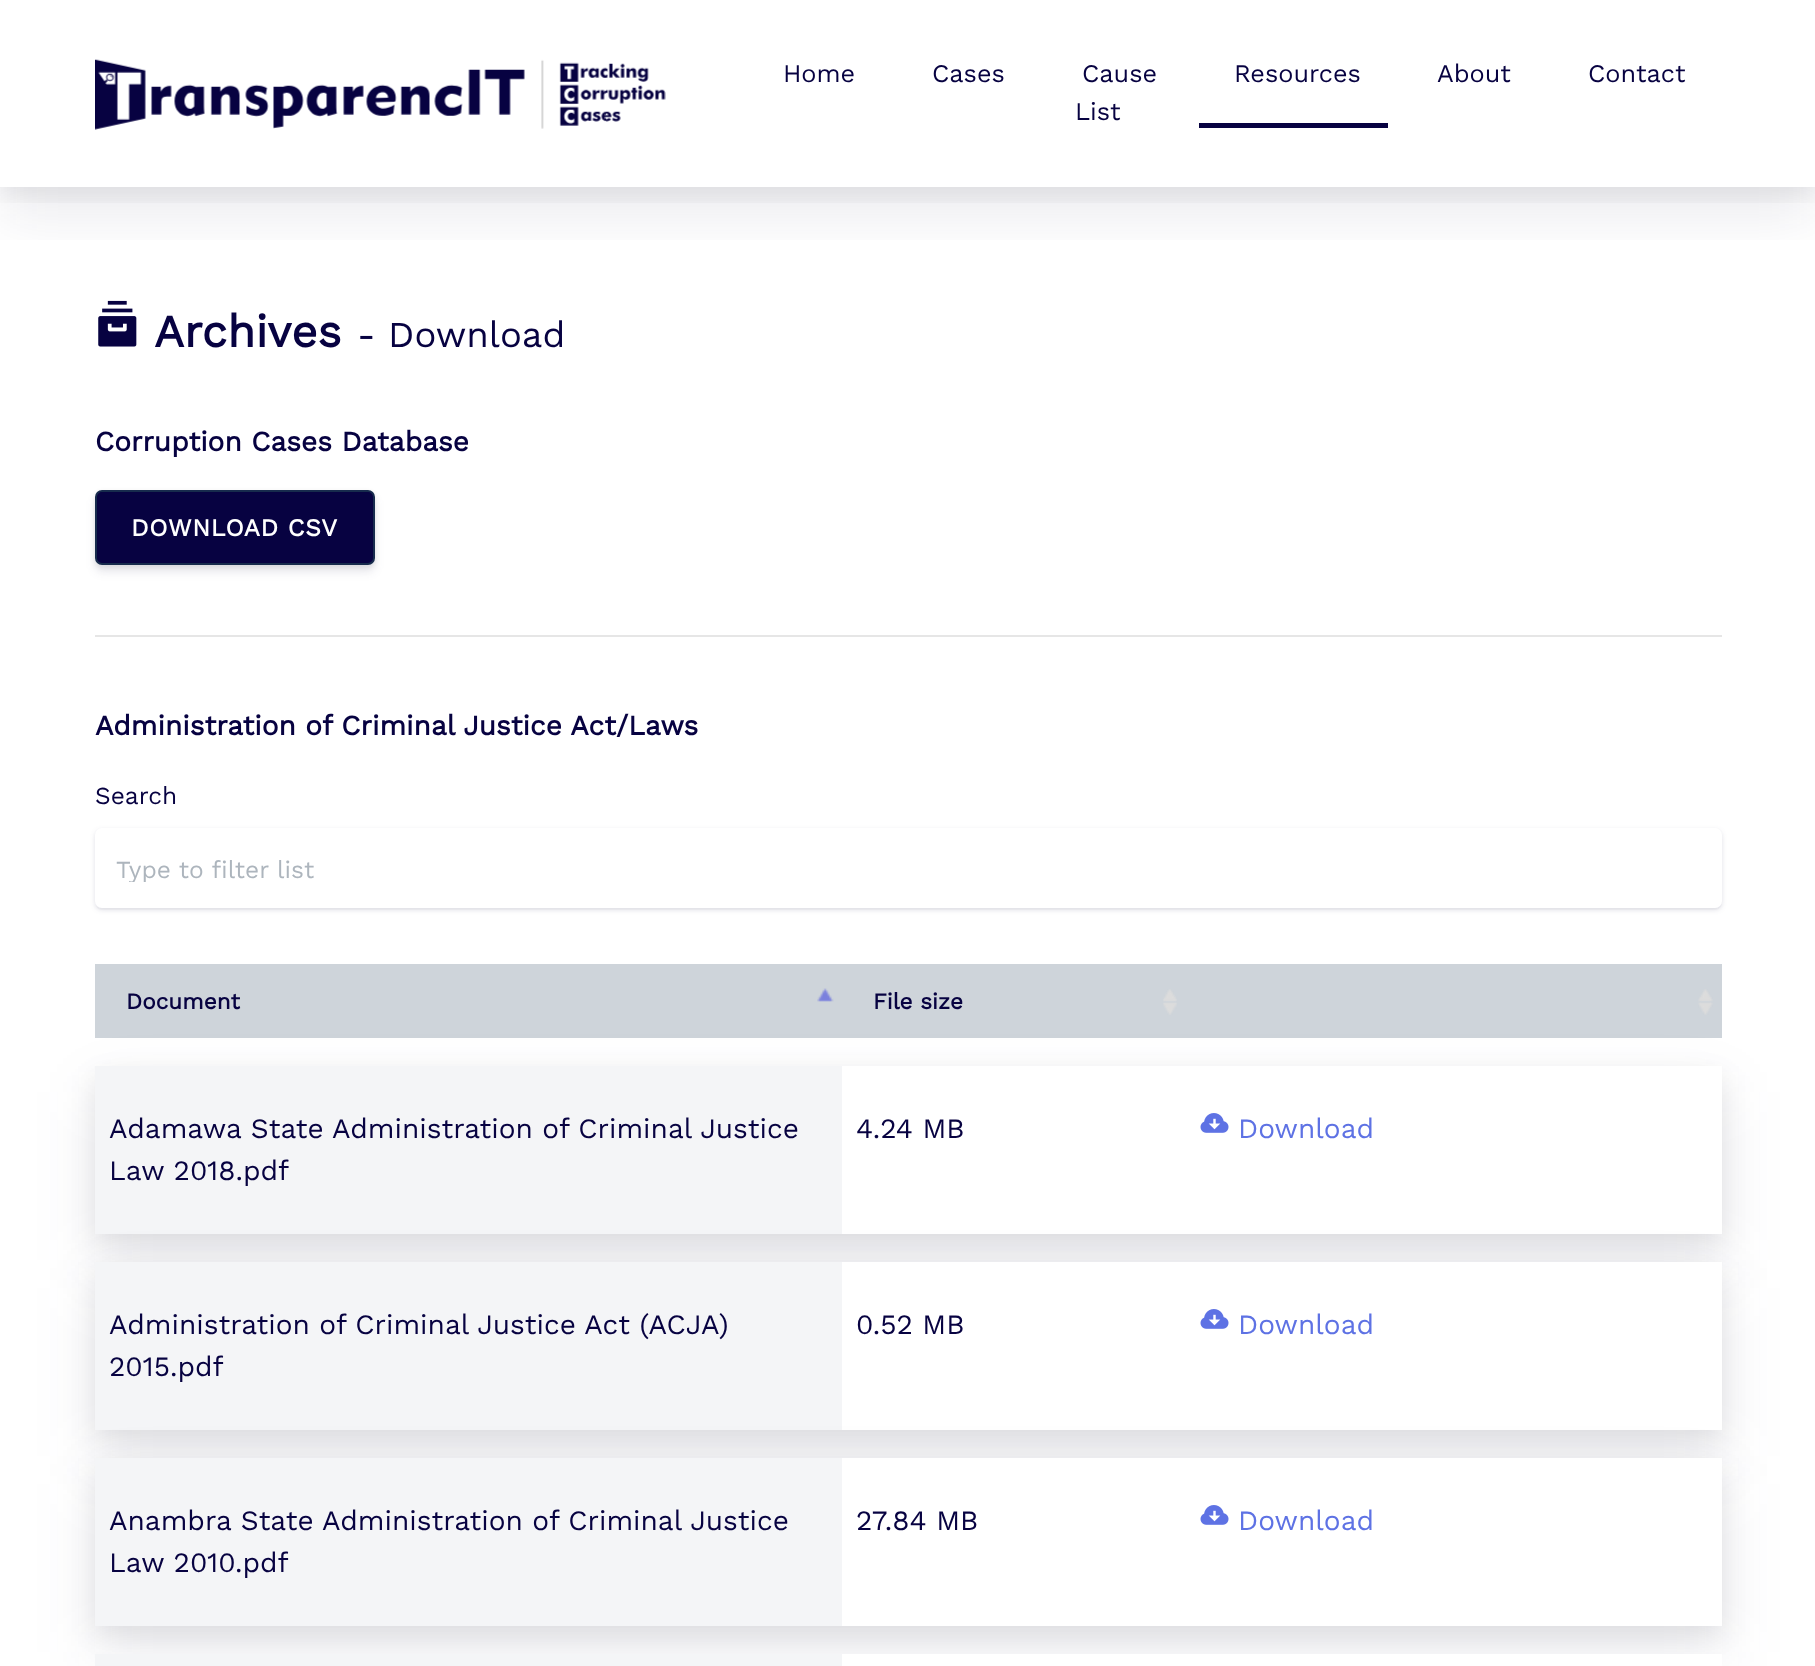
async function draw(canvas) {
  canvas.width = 1815;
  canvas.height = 1666;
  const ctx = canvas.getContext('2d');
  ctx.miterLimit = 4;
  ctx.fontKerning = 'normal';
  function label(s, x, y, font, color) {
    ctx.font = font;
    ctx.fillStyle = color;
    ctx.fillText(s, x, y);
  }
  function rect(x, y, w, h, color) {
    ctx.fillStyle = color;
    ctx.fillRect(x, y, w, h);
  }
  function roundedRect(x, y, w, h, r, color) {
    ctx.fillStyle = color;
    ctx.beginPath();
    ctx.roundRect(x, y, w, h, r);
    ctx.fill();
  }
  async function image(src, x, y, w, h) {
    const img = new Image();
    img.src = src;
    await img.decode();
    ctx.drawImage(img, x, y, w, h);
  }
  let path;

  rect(0, 0, 1815, 1666, '#fff');
  ctx.save();
  ctx.beginPath();
  ctx.rect(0, 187, 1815, 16);
  ctx.clip();
  ctx.fillStyle = '#00000012';
  ctx.filter = 'blur(13px)';
  ctx.beginPath();
  ctx.rect(0, 9, 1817, 187);
  ctx.fill();
  ctx.filter = 'none';
  ctx.restore();
  await image('assets/img2.png', 98, 300, 39, 47);
  ctx.save();
  ctx.beginPath();
  ctx.rect(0, 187, 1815, 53);
  ctx.clip();
  ctx.fillStyle = '#32325d1a';
  ctx.filter = 'blur(30.5px)';
  ctx.beginPath();
  ctx.rect(0, 26, 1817, 188);
  ctx.fill();
  ctx.filter = 'none';
  ctx.restore();
  await image('assets/img1.png', 95, 59, 571, 71);
  label('Home', 783, 82, '25.25px Work Sans', '#070241');
  label('Cases', 932, 82, '25.25px Work Sans', '#070241');
  label('Cause', 1082, 82, '25.25px Work Sans', '#070241');
  label('List', 1075, 120, '25.25px Work Sans', '#070241');
  rect(1199, 123, 189, 5, '#070241');
  label('Resources', 1234, 82, '25.25px Work Sans', '#070241');
  label('About', 1437, 82, '25.25px Work Sans', '#070241');
  label('Contact', 1588, 82, '25.25px Work Sans', '#070241');
  label('Archives', 154, 347, 'bold 45.5px Work Sans', '#070241');
  label('- Download', 357, 347, '36.5px Work Sans', '#070241');
  label('Corruption Cases Database', 95, 451, 'bold 28px Work Sans', '#070241');
  ctx.fillStyle = '#00000014';
  ctx.filter = 'blur(2.5px)';
  ctx.beginPath();
  ctx.roundRect(95, 492, 280, 75, 7);
  ctx.fill();
  ctx.filter = 'none';
  ctx.fillStyle = '#32325d1c';
  ctx.filter = 'blur(5px)';
  ctx.beginPath();
  ctx.roundRect(95, 497, 280, 75, 7);
  ctx.fill();
  ctx.filter = 'none';
  ctx.fillStyle = '#070241';
  ctx.beginPath();
  ctx.roundRect(96, 491, 278, 73, 6);
  ctx.fill();
  ctx.strokeStyle = '#172b4d';
  ctx.lineWidth = 2;
  ctx.stroke();
  ctx.letterSpacing = '0.6px';
  label('DOWNLOAD CSV', 131, 536, 'bold 24.5px Work Sans', '#fff');
  rect(95, 635, 1627, 2, '#e6e6e6');
  ctx.letterSpacing = '0px';
  label('Administration of Criminal Justice Act/Laws', 95, 735, 'bold 28px Work Sans', '#070241');
  label('Search', 95, 804, '24.5px Work Sans', '#070241');
  ctx.fillStyle = '#fafafa';
  path = new Path2D('M95 904C96 907 98 910 102 910H1715C1719 910 1722 907 1722 903V901C1722 905 1719 908 1715 908H102C99 908 96 907 95 904Z');
  ctx.fill(path);
  ctx.fillStyle = '#32325d26';
  ctx.filter = 'blur(2.5px)';
  ctx.beginPath();
  ctx.roundRect(95, 830, 1627, 80, 7);
  ctx.fill();
  ctx.filter = 'none';
  roundedRect(95, 828, 1627, 80, 7, '#fff');
  ctx.save();
  ctx.beginPath();
  ctx.rect(116, 854, 1585, 28);
  ctx.clip();
  label('Type to filter list', 116, 878, '24.5px Work Sans', '#adb5bd');
  ctx.restore();
  rect(95, 964, 1627, 74, '#ced4da');
  await image('assets/img3.png', 817, 988, 17, 14);
  await image('assets/img4.png', 1163, 989, 14, 26);
  await image('assets/img5.png', 1698, 989, 15, 26);
  ctx.fillStyle = '#32325d1a';
  ctx.filter = 'blur(30.5px)';
  ctx.beginPath();
  ctx.rect(95, 1092, 1627, 168);
  ctx.fill();
  ctx.filter = 'none';
  label('Document', 126, 1009, 'bold 22.5px Work Sans', '#070241');
  label('File size', 873, 1009, 'bold 22.5px Work Sans', '#070241');
  ctx.fillStyle = '#00000012';
  ctx.filter = 'blur(13px)';
  ctx.beginPath();
  ctx.rect(95, 1075, 1627, 168);
  ctx.fill();
  ctx.filter = 'none';
  rect(842, 1066, 880, 168, '#fff');
  rect(95, 1066, 747, 168, '#f4f5f7');
  label('Adamawa State Administration of Criminal Justice', 109, 1138, '28px Work Sans', '#070241');
  label('Law 2018.pdf', 109, 1180, '28px Work Sans', '#070241');
  label('4.24 MB', 856, 1138, '28px Work Sans', '#070241');
  await image('assets/img6.png', 1200, 1113, 29, 20);
  label('Download', 1238, 1138, '28px Work Sans', '#5e72e4');
  ctx.fillStyle = '#00000012';
  ctx.filter = 'blur(13px)';
  ctx.beginPath();
  ctx.rect(95, 1271, 1627, 168);
  ctx.fill();
  ctx.filter = 'none';
  ctx.fillStyle = '#32325d1a';
  ctx.filter = 'blur(30.5px)';
  ctx.beginPath();
  ctx.rect(95, 1288, 1627, 168);
  ctx.fill();
  ctx.filter = 'none';
  rect(842, 1262, 880, 168, '#fff');
  rect(95, 1262, 747, 168, '#f4f5f7');
  label('Administration of Criminal Justice Act (ACJA)', 109, 1334, '28px Work Sans', '#070241');
  label('2015.pdf', 109, 1376, '28px Work Sans', '#070241');
  label('0.52 MB', 856, 1334, '28px Work Sans', '#070241');
  await image('assets/img6.png', 1200, 1309, 29, 20);
  label('Download', 1238, 1334, '28px Work Sans', '#5e72e4');
  ctx.fillStyle = '#00000012';
  ctx.filter = 'blur(13px)';
  ctx.beginPath();
  ctx.rect(95, 1467, 1627, 168);
  ctx.fill();
  ctx.filter = 'none';
  ctx.fillStyle = '#32325d1a';
  ctx.filter = 'blur(30.5px)';
  ctx.beginPath();
  ctx.rect(95, 1484, 1627, 168);
  ctx.fill();
  ctx.filter = 'none';
  rect(842, 1458, 880, 168, '#fff');
  rect(95, 1458, 747, 168, '#f4f5f7');
  label('Anambra State Administration of Criminal Justice', 109, 1530, '28px Work Sans', '#070241');
  label('Law 2010.pdf', 109, 1572, '28px Work Sans', '#070241');
  label('27.84 MB', 856, 1530, '28px Work Sans', '#070241');
  await image('assets/img6.png', 1200, 1505, 29, 20);
  label('Download', 1238, 1530, '28px Work Sans', '#5e72e4');
  rect(842, 1654, 880, 12, '#fff');
  rect(95, 1654, 747, 12, '#f4f5f7');
}

draw(document.querySelector('canvas'));
